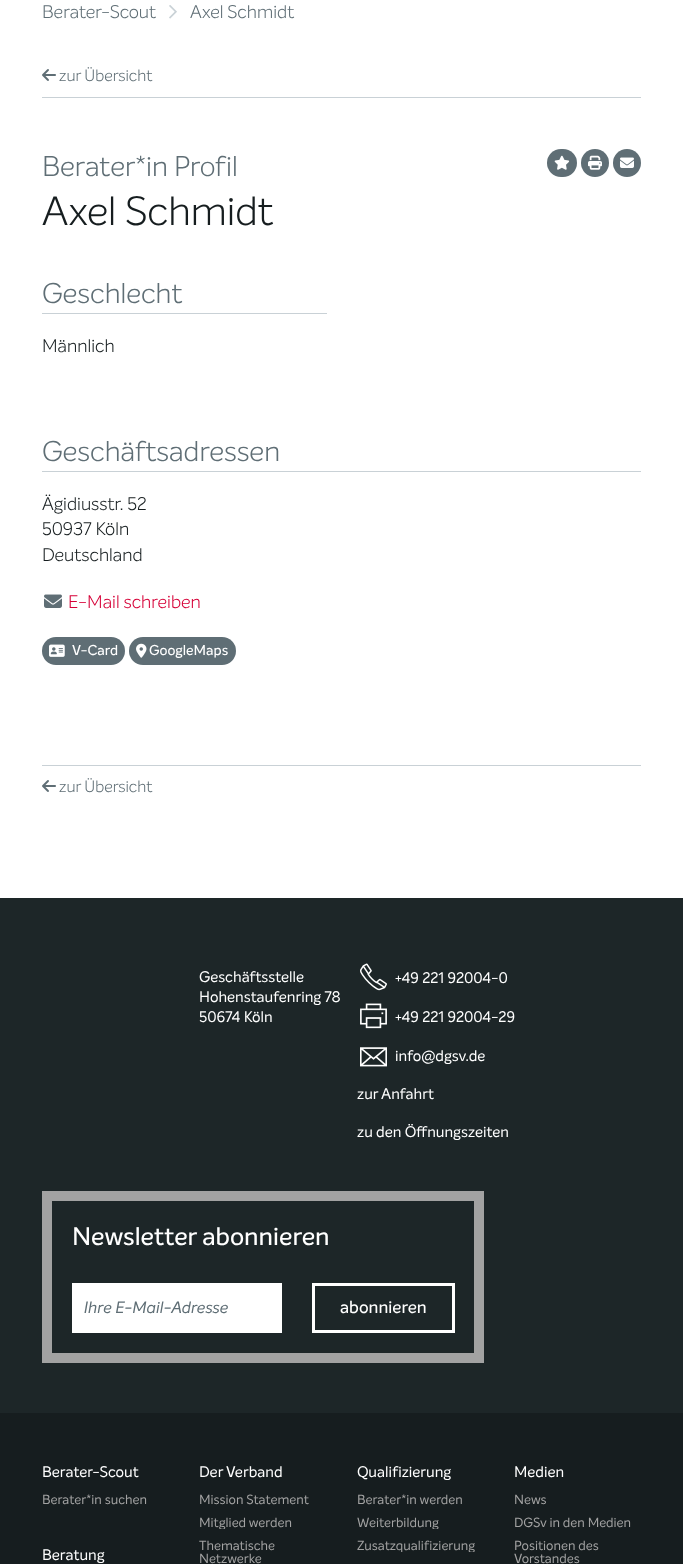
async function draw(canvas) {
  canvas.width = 683;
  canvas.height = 1564;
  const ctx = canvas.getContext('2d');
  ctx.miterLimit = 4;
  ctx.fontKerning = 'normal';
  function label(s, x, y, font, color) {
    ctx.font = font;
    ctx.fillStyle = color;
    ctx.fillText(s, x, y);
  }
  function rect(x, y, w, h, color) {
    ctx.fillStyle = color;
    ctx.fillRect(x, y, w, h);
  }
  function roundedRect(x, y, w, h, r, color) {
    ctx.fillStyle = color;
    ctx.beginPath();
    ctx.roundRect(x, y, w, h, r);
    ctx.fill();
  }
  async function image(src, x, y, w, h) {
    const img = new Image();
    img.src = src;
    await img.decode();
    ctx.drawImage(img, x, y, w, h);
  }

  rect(0, 0, 683, 1564, '#fff');
  label('Berater-Scout', 42, 18, '300 18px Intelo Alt', '#5f6e75');
  await image('assets/img1.png', 169, 5, 8, 14);
  label('Axel Schmidt', 190, 18, '300 18px Intelo Alt', '#5f6e75');
  await image('assets/img2.png', 42, 69, 14, 12);
  label('zur Übersicht', 59, 81, '300 16px Intelo Alt', '#5f6e75');
  rect(42, 97, 599, 1, '#c9d1d6');
  rect(42, 765, 599, 1, '#c9d1d6');
  label('Berater*in Profil', 42, 176, '300 28px Intelo Alt', '#5f6e75');
  label('Axel Schmidt', 42, 225, '300 40px Intelo Alt', '#161d1f');
  roundedRect(547, 149, 30, 28, 14, '#5f6e75');
  await image('assets/img3.png', 554, 155, 16, 15);
  ctx.beginPath();
  ctx.arc(595, 163, 14, 0, 2 * Math.PI);
  ctx.fill();
  await image('assets/img4.png', 588, 155, 14, 15);
  ctx.beginPath();
  ctx.arc(627, 163, 14, 0, 2 * Math.PI);
  ctx.fill();
  await image('assets/img5.png', 620, 157, 14, 11);
  rect(42, 313, 285, 1, '#c9d1d6');
  label('Geschlecht', 42, 303, '300 28px Intelo Alt', '#5f6e75');
  label('Männlich', 42, 352, '300 18px Intelo Alt', '#161d1f');
  rect(42, 471, 599, 1, '#c9d1d6');
  label('Geschäftsadressen', 42, 461, '300 28px Intelo Alt', '#5f6e75');
  label('Ägidiusstr. 52', 42, 510, '300 18px Intelo Alt', '#161d1f');
  label('50937 Köln', 42, 535, '300 18px Intelo Alt', '#161d1f');
  label('Deutschland', 42, 561, '300 18px Intelo Alt', '#161d1f');
  await image('assets/img6.png', 44, 594, 18, 14);
  label('E-Mail schreiben', 68, 608, '300 18px Intelo Alt', '#d60037');
  roundedRect(42, 637, 83, 28, 14, '#5f6e75');
  await image('assets/img7.png', 49, 644, 16, 13);
  label('V-Card', 72, 655, '500 14px Intelo Alt', '#fff');
  roundedRect(129, 637, 107, 28, 14, '#5f6e75');
  await image('assets/img8.png', 136, 643, 11, 15);
  label('GoogleMaps', 149, 655, '500 14px Intelo Alt', '#fff');
  await image('assets/img2.png', 42, 780, 14, 12);
  label('zur Übersicht', 59, 792, '300 16px Intelo Alt', '#5f6e75');
  rect(0, 898, 683, 515, '#1d2628');
  label('Geschäftsstelle', 199, 982, '15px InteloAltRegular', '#fff');
  label('Hohenstaufenring 78', 199, 1002, '15px InteloAltRegular', '#fff');
  label('50674 Köln', 199, 1022, '15px InteloAltRegular', '#fff');
  await image('assets/img9.png', 360, 963, 27, 28);
  label('+49 221 92004-0', 395, 983, '15px InteloAltRegular', '#fff');
  await image('assets/img10.png', 360, 1003, 27, 26);
  label('+49 221 92004-29', 395, 1022, '15px InteloAltRegular', '#fff');
  await image('assets/img11.png', 360, 1047, 27, 20);
  label('info@dgsv.de', 395, 1061, '15px InteloAltRegular', '#fff');
  label('zur Anfahrt', 357, 1099, '15px InteloAltRegular', '#fff');
  label('zu den Öffnungszeiten', 357, 1137, '15px InteloAltRegular', '#fff');
  ctx.strokeStyle = '#a2a2a2';
  ctx.lineWidth = 10;
  ctx.strokeRect(47, 1196, 432, 162);
  label('Newsletter abonnieren', 72, 1245, '500 25px Intelo Alt', '#fff');
  rect(72, 1283, 210, 50, '#fff');
  label('Ihre E-Mail-Adresse', 85, 1313, 'italic 16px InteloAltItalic', '#5f6e75');
  ctx.strokeStyle = '#fff';
  ctx.lineWidth = 3;
  ctx.strokeRect(313.5, 1284.5, 140, 47);
  label('abonnieren', 340, 1313, '500 17px Intelo Alt', '#fff');
  rect(0, 1413, 683, 151, '#161d1f');
  label('Berater-Scout', 42, 1477, '15px InteloAltRegular', '#fff');
  label('Berater*in suchen', 42, 1504, '13px InteloAltRegular', '#a2a2a2');
  label('Beratung', 42, 1560, '15px InteloAltRegular', '#fff');
  label('Der Verband', 199, 1477, '15px InteloAltRegular', '#fff');
  label('Mission Statement', 199, 1504, '13px InteloAltRegular', '#a2a2a2');
  ctx.save();
  ctx.beginPath();
  ctx.rect(199, 1516, 128, 13);
  ctx.clip();
  label('Mitglied werden', 199, 1527, '13px InteloAltRegular', '#a2a2a2');
  ctx.restore();
  label('Thematische', 199, 1550, '13px InteloAltRegular', '#a2a2a2');
  label('Netzwerke', 199, 1563, '13px InteloAltRegular', '#a2a2a2');
  label('Qualifizierung', 357, 1477, '15px InteloAltRegular', '#fff');
  label('Berater*in werden', 357, 1504, '13px InteloAltRegular', '#a2a2a2');
  ctx.save();
  ctx.beginPath();
  ctx.rect(357, 1516, 127, 13);
  ctx.clip();
  label('Weiterbildung', 357, 1527, '13px InteloAltRegular', '#a2a2a2');
  ctx.restore();
  ctx.save();
  ctx.beginPath();
  ctx.rect(357, 1539, 127, 13);
  ctx.clip();
  label('Zusatzqualifizierung', 357, 1550, '13px InteloAltRegular', '#a2a2a2');
  ctx.restore();
  label('Medien', 514, 1477, '15px InteloAltRegular', '#fff');
  label('News', 514, 1504, '13px InteloAltRegular', '#a2a2a2');
  label('DGSv in den Medien', 514, 1527, '13px InteloAltRegular', '#a2a2a2');
  label('Positionen des', 514, 1550, '13px InteloAltRegular', '#a2a2a2');
  label('Vorstandes', 514, 1563, '13px InteloAltRegular', '#a2a2a2');
}

draw(document.querySelector('canvas'));
